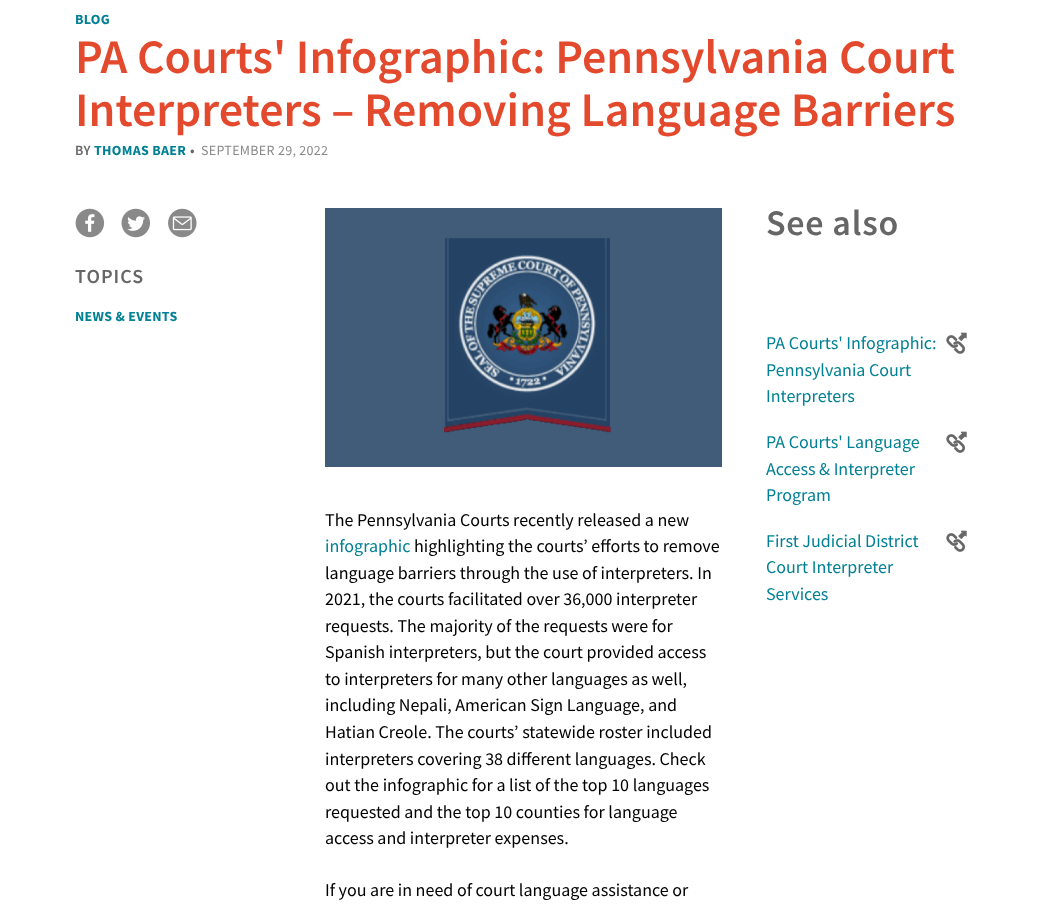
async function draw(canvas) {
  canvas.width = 1043;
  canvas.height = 904;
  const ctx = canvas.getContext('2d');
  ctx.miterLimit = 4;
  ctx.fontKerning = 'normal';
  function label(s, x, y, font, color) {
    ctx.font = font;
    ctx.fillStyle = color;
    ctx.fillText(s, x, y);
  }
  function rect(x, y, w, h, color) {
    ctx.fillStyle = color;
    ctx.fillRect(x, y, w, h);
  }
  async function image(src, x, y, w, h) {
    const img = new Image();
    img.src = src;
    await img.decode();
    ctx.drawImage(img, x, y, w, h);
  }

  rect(0, 0, 1043, 904, '#fff');
  ctx.letterSpacing = '0.3px';
  label('BLOG', 75, 24, 'bold 14px Source Sans Pro', '#028095');
  ctx.letterSpacing = '0px';
  label('PA Courts\' Infographic: Pennsylvania Court', 75, 73, '600 48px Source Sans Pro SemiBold', '#e3492d');
  label('Interpreters – Removing Language Barriers', 75, 126, '600 48px Source Sans Pro SemiBold', '#e3492d');
  ctx.letterSpacing = '0.3px';
  label('BY', 75, 155, '600 14px Source Sans Pro SemiBold', '#666');
  label('THOMAS BAER', 94, 155, 'bold 14px Source Sans Pro', '#028095');
  label('•', 190, 155, '600 14px Source Sans Pro SemiBold', '#666');
  label('SEPTEMBER 29, 2022', 201, 155, '14px Source Sans Pro', '#898989');
  await image('assets/img1.png', 75, 208, 30, 30);
  await image('assets/img2.png', 121, 208, 29, 30);
  await image('assets/img3.png', 168, 208, 29, 30);
  ctx.letterSpacing = '1px';
  label('TOPICS', 75, 283, '600 20px Source Sans Pro SemiBold', '#666');
  ctx.letterSpacing = '0.3px';
  label('NEWS & EVENTS', 75, 321, 'bold 14px Source Sans Pro', '#028095');
  ctx.letterSpacing = '0.75px';
  label('See also', 766, 235, '600 36px Source Sans Pro SemiBold', '#666');
  ctx.letterSpacing = '0px';
  label('PA Courts\' Infographic:', 766, 349, '18px Source Sans Pro', '#028095');
  await image('assets/img4.png', 946, 332, 21, 22);
  label('Pennsylvania Court', 766, 376, '18px Source Sans Pro', '#028095');
  label('Interpreters', 766, 402, '18px Source Sans Pro', '#028095');
  label('PA Courts\' Language', 766, 448, '18px Source Sans Pro', '#028095');
  await image('assets/img4.png', 946, 431, 21, 22);
  label('Access & Interpreter', 766, 475, '18px Source Sans Pro', '#028095');
  label('Program', 766, 501, '18px Source Sans Pro', '#028095');
  label('First Judicial District', 766, 547, '18px Source Sans Pro', '#028095');
  await image('assets/img4.png', 946, 530, 21, 22);
  label('Court Interpreter', 766, 573, '18px Source Sans Pro', '#028095');
  label('Services', 766, 600, '18px Source Sans Pro', '#028095');
  await image('assets/img5.png', 325, 208, 397, 259);
  label('The Pennsylvania Courts recently released a new', 325, 526, '18px Source Sans Pro', '#000');
  label('infographic', 325, 552, '18px Source Sans Pro', '#028095');
  label('highlighting the courts’ efforts to remove', 414, 552, '18px Source Sans Pro', '#000');
  label('language barriers through the use of interpreters. In', 325, 579, '18px Source Sans Pro', '#000');
  label('2021, the courts facilitated over 36,000 interpreter', 325, 605, '18px Source Sans Pro', '#000');
  label('requests. The majority of the requests were for', 325, 632, '18px Source Sans Pro', '#000');
  label('Spanish interpreters, but the court provided access', 325, 658, '18px Source Sans Pro', '#000');
  label('to interpreters for many other languages as well,', 325, 685, '18px Source Sans Pro', '#000');
  label('including Nepali, American Sign Language, and', 325, 711, '18px Source Sans Pro', '#000');
  label('Hatian Creole. The courts’ statewide roster included', 325, 738, '18px Source Sans Pro', '#000');
  label('interpreters covering 38 different languages. Check', 325, 765, '18px Source Sans Pro', '#000');
  label('out the infographic for a list of the top 10 languages', 325, 791, '18px Source Sans Pro', '#000');
  label('requested and the top 10 counties for language', 325, 818, '18px Source Sans Pro', '#000');
  label('access and interpreter expenses.', 325, 844, '18px Source Sans Pro', '#000');
  label('If you are in need of court language assistance or', 325, 896, '18px Source Sans Pro', '#000');
}

draw(document.querySelector('canvas'));
